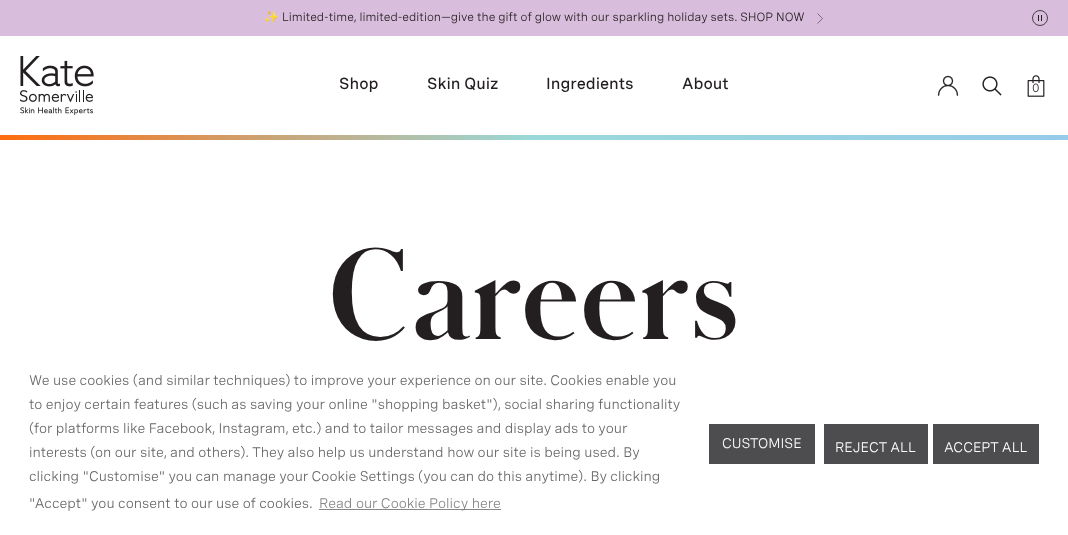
async function draw(canvas) {
  canvas.width = 1068;
  canvas.height = 535;
  const ctx = canvas.getContext('2d');
  ctx.miterLimit = 4;
  ctx.fontKerning = 'normal';
  function label(s, x, y, font, color) {
    ctx.font = font;
    ctx.fillStyle = color;
    ctx.fillText(s, x, y);
  }
  function rect(x, y, w, h, color) {
    ctx.fillStyle = color;
    ctx.fillRect(x, y, w, h);
  }
  async function image(src, x, y, w, h) {
    const img = new Image();
    img.src = src;
    await img.decode();
    ctx.drawImage(img, x, y, w, h);
  }
  let gradient, path;

  rect(0, 0, 1068, 535, '#fff');
  rect(0, 0, 1068, 36, '#d8bddc');
  label('✨', 264, 21, '12px Noto Color Emoji', '#231f20');
  label('Limited-time, limited-edition—give the gift of glow with our sparkling holiday sets. SHOP NOW', 282, 21, '12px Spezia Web', '#231f20');
  path = new Path2D('M817.5 13.5L822.5 18.5L817.5 23.5');
  ctx.strokeStyle = '#231f20';
  ctx.lineWidth = 0.5;
  ctx.stroke(path);
  ctx.beginPath();
  ctx.arc(1040, 18, 7.5, 0, 2 * Math.PI);
  ctx.lineWidth = 0.8;
  ctx.stroke();
  rect(1038, 15, 1, 6, '#231f20');
  rect(1041, 15, 1, 6, '#231f20');
  await image('assets/img1.png', 20, 56, 74, 59);
  label('Shop', 339, 89, '500 16px Spezia Web', '#231f20');
  label('Skin Quiz', 427, 89, '500 16px Spezia Web', '#231f20');
  label('Ingredients', 546, 89, '500 16px Spezia Web', '#231f20');
  label('About', 682, 89, '500 16px Spezia Web', '#231f20');
  await image('assets/img2.png', 937, 75, 22, 21);
  await image('assets/img3.png', 982, 76, 20, 20);
  await image('assets/img4.png', 1027, 75, 18, 22);
  label('0', 1032, 92, '12px Spezia Web', '#231f20');
  gradient = ctx.createLinearGradient(0, 138, 1068, 137);
  gradient.addColorStop(0, '#ff6c0e');
  gradient.addColorStop(0.5, '#99d9d9');
  gradient.addColorStop(1, '#97caeb');
  ctx.fillStyle = gradient;
  ctx.fillRect(0, 135, 1068, 5);
  ctx.letterSpacing = '2.5px';
  label('Careers', 328, 339, 'bold 120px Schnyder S', '#231f20');
  ctx.letterSpacing = '0px';
  label('We use cookies (and similar techniques) to improve your experience on our site. Cookies enable you', 29, 385, '14px Spezia Web', '#696969');
  label('to enjoy certain features (such as saving your online "shopping basket"), social sharing functionality', 29, 409, '14px Spezia Web', '#696969');
  label('(for platforms like Facebook, Instagram, etc.) and to tailor messages and display ads to your', 29, 433, '14px Spezia Web', '#696969');
  rect(709, 424, 106, 40, '#4d4d4f');
  label('CUSTOMISE', 722, 448, '14px Spezia Web', '#fff');
  label('interests (on our site, and others). They also help us understand how our site is being used. By', 29, 457, '14px Spezia Web', '#696969');
  label('clicking "Customise" you can manage your Cookie Settings (you can do this anytime). By clicking', 29, 481, '14px Spezia Web', '#696969');
  label('"Accept" you consent to our use of cookies.', 29, 508, '14px Spezia Web', '#696969');
  rect(319, 509, 182, 1, '#878787');
  label('Read our Cookie Policy here', 319, 508, '14px Spezia Web', '#878787');
  rect(824, 424, 104, 40, '#4d4d4f');
  label('REJECT ALL', 835, 452, '14px Spezia Web', '#fff');
  rect(933, 424, 106, 40, '#4d4d4f');
  label('ACCEPT ALL', 944, 452, '14px Spezia Web', '#fff');
}

draw(document.querySelector('canvas'));
